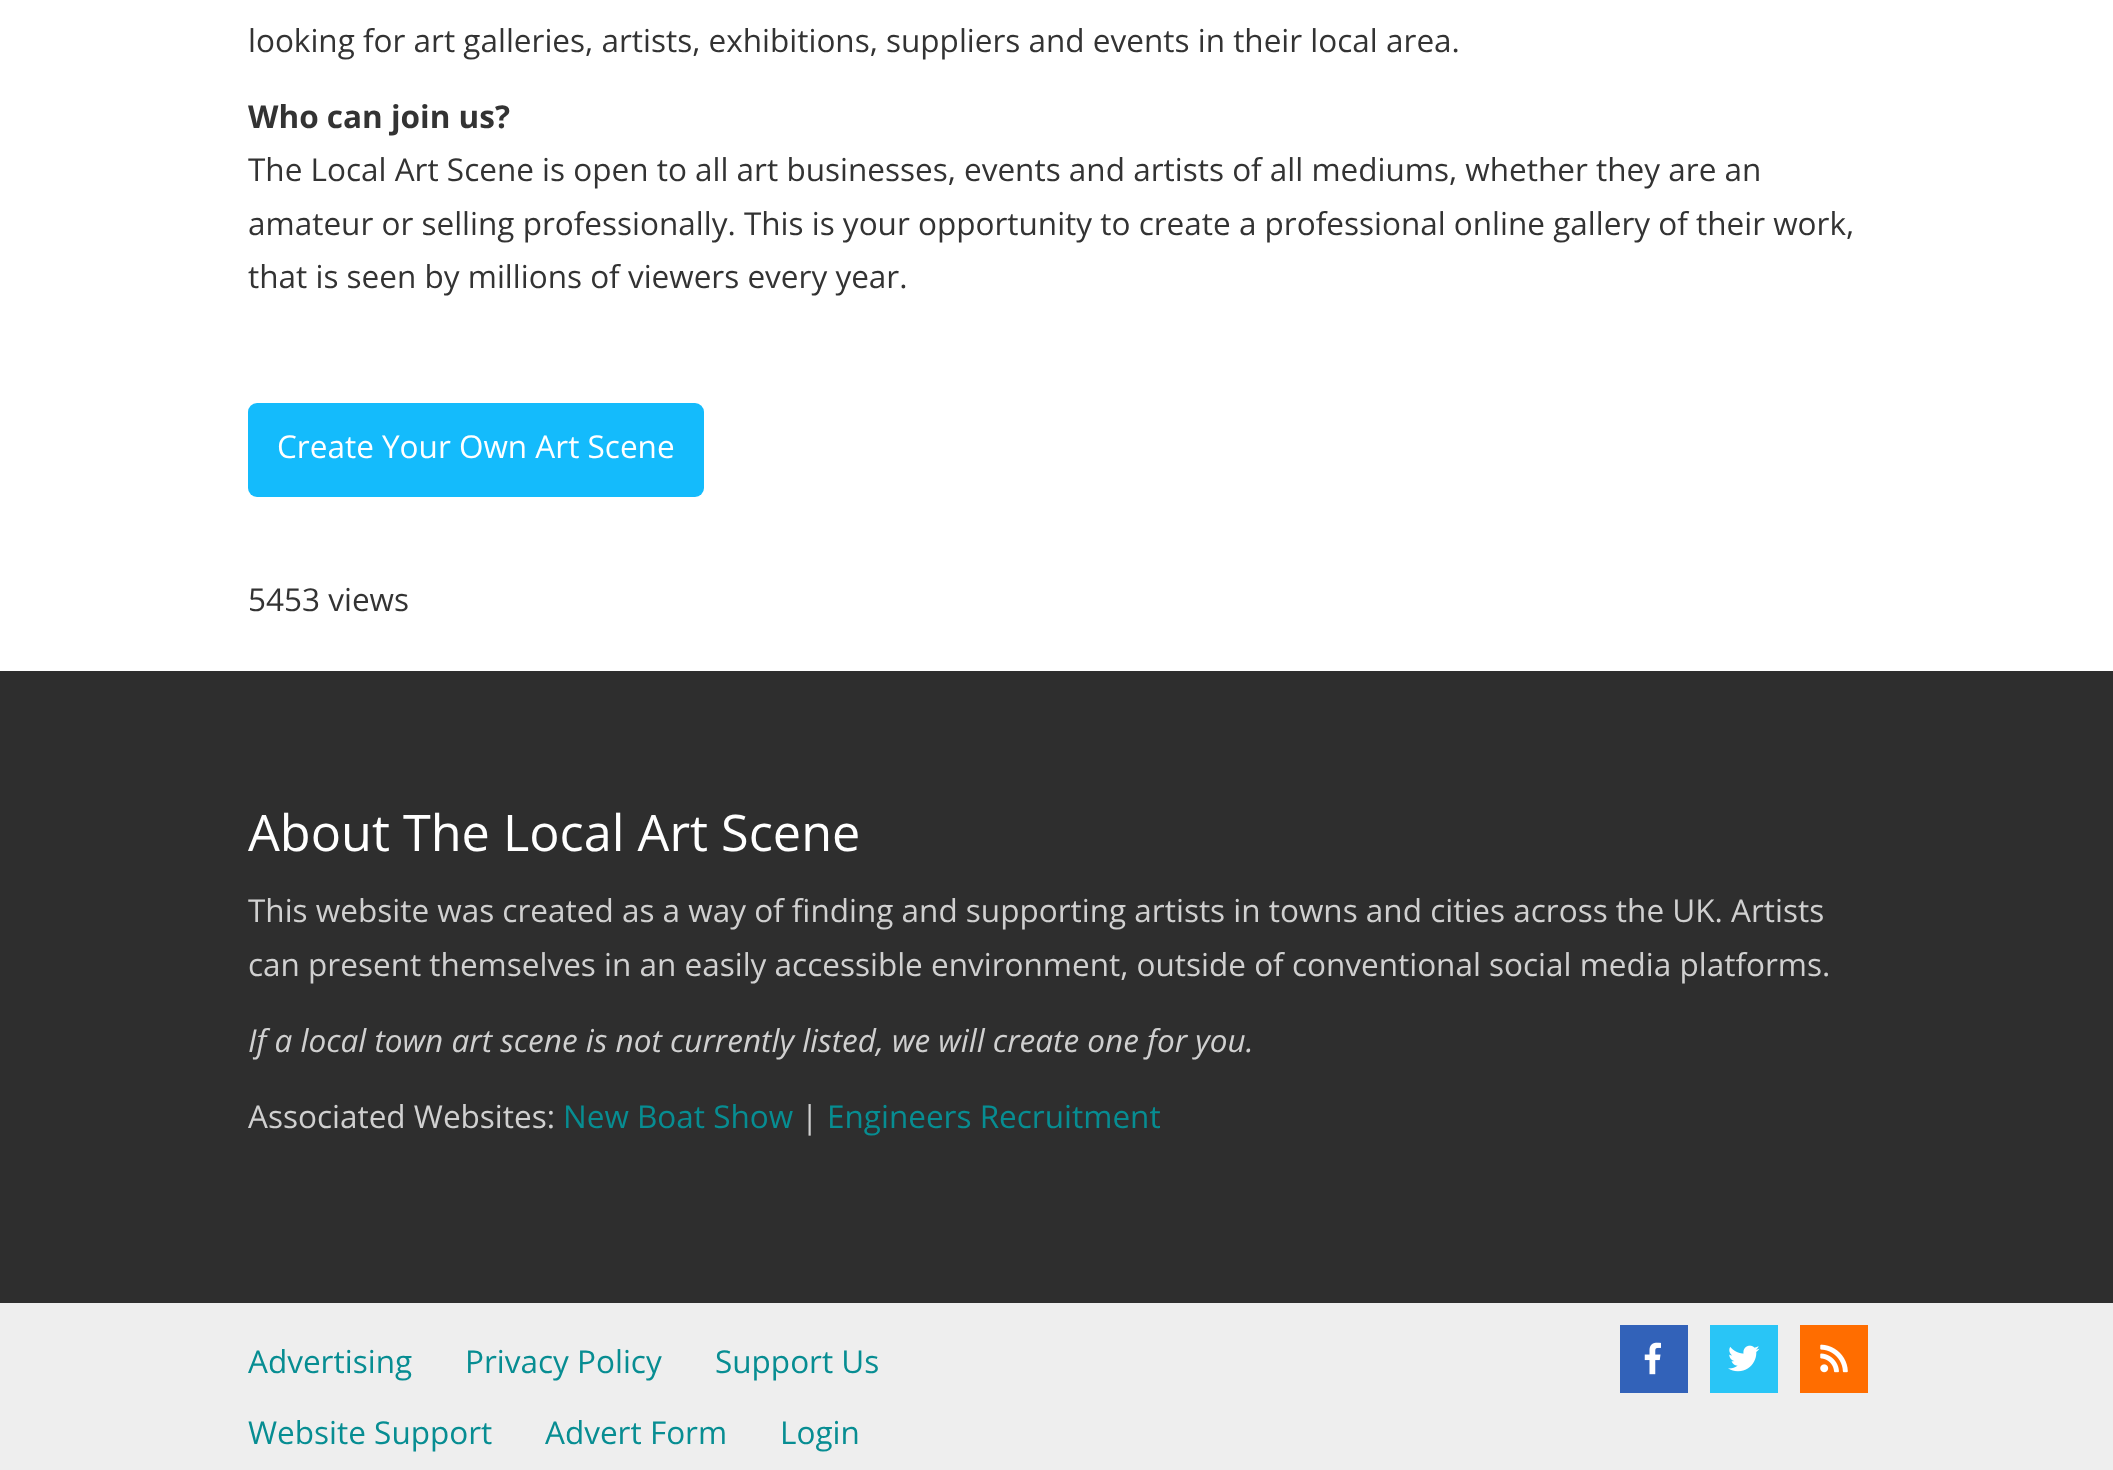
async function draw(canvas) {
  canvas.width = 2113;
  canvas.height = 1470;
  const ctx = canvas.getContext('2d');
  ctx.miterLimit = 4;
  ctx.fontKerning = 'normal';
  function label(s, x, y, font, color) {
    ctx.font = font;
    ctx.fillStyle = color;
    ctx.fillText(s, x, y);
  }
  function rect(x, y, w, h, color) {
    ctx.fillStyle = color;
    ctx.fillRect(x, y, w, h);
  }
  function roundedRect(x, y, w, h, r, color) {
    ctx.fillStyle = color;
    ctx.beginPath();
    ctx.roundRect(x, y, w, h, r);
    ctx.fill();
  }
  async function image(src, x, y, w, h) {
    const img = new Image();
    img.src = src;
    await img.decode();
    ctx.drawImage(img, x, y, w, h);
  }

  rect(0, 0, 2113, 1470, '#fff');
  label('looking for art galleries, artists, exhibitions, suppliers and events in their local area.', 248, 52, '31.5px Open Sans', '#333');
  label('Who can join us?', 248, 128, 'bold 31.5px Open Sans', '#333');
  label('The Local Art Scene is open to all art businesses, events and artists of all mediums, whether they are an', 248, 181, '31.5px Open Sans', '#333');
  label('amateur or selling professionally. This is your opportunity to create a professional online gallery of their work,', 248, 235, '31.5px Open Sans', '#333');
  label('that is seen by millions of viewers every year.', 248, 288, '31.5px Open Sans', '#333');
  roundedRect(248, 403, 456, 94, 9, '#14bbfc');
  label('Create Your Own Art Scene', 277, 458, '31.5px Open Sans', '#fff');
  label('5453 views', 248, 611, '31.5px Open Sans', '#333');
  rect(0, 671, 2113, 632, '#2e2e2e');
  label('About The Local Art Scene', 248, 851, '50.4px Open Sans', '#fff');
  label('This website was created as a way of finding and supporting artists in towns and cities across the UK. Artists', 248, 922, '31.5px Open Sans', '#d0d0d0');
  label('can present themselves in an easily accessible environment, outside of conventional social media platforms.', 248, 976, '31.5px Open Sans', '#d0d0d0');
  label('If a local town art scene is not currently listed, we will create one for you.', 248, 1052, 'italic 31.5px Open Sans', '#d0d0d0');
  label('Associated Websites:', 248, 1128, '31.5px Open Sans', '#d0d0d0');
  label('New Boat Show', 563, 1128, '31.5px Open Sans', '#078d92');
  label('|', 801, 1128, '31.5px Open Sans', '#d0d0d0');
  label('Engineers Recruitment', 827, 1128, '31.5px Open Sans', '#078d92');
  rect(0, 1303, 2113, 167, '#eee');
  label('Advertising', 248, 1373, '31.5px Open Sans', '#078d92');
  label('Privacy Policy', 465, 1373, '31.5px Open Sans', '#078d92');
  label('Support Us', 715, 1373, '31.5px Open Sans', '#078d92');
  label('Website Support', 248, 1444, '31.5px Open Sans', '#078d92');
  label('Advert Form', 545, 1444, '31.5px Open Sans', '#078d92');
  label('Login', 780, 1444, '31.5px Open Sans', '#078d92');
  rect(1620, 1325, 68, 68, '#3262b9');
  await image('assets/img1.png', 1644, 1342, 17, 33);
  rect(1710, 1325, 68, 68, '#29c5f6');
  await image('assets/img2.png', 1728, 1345, 32, 27);
  rect(1800, 1325, 68, 68, '#ff6d00');
  await image('assets/img3.png', 1820, 1344, 28, 29);
}

draw(document.querySelector('canvas'));
